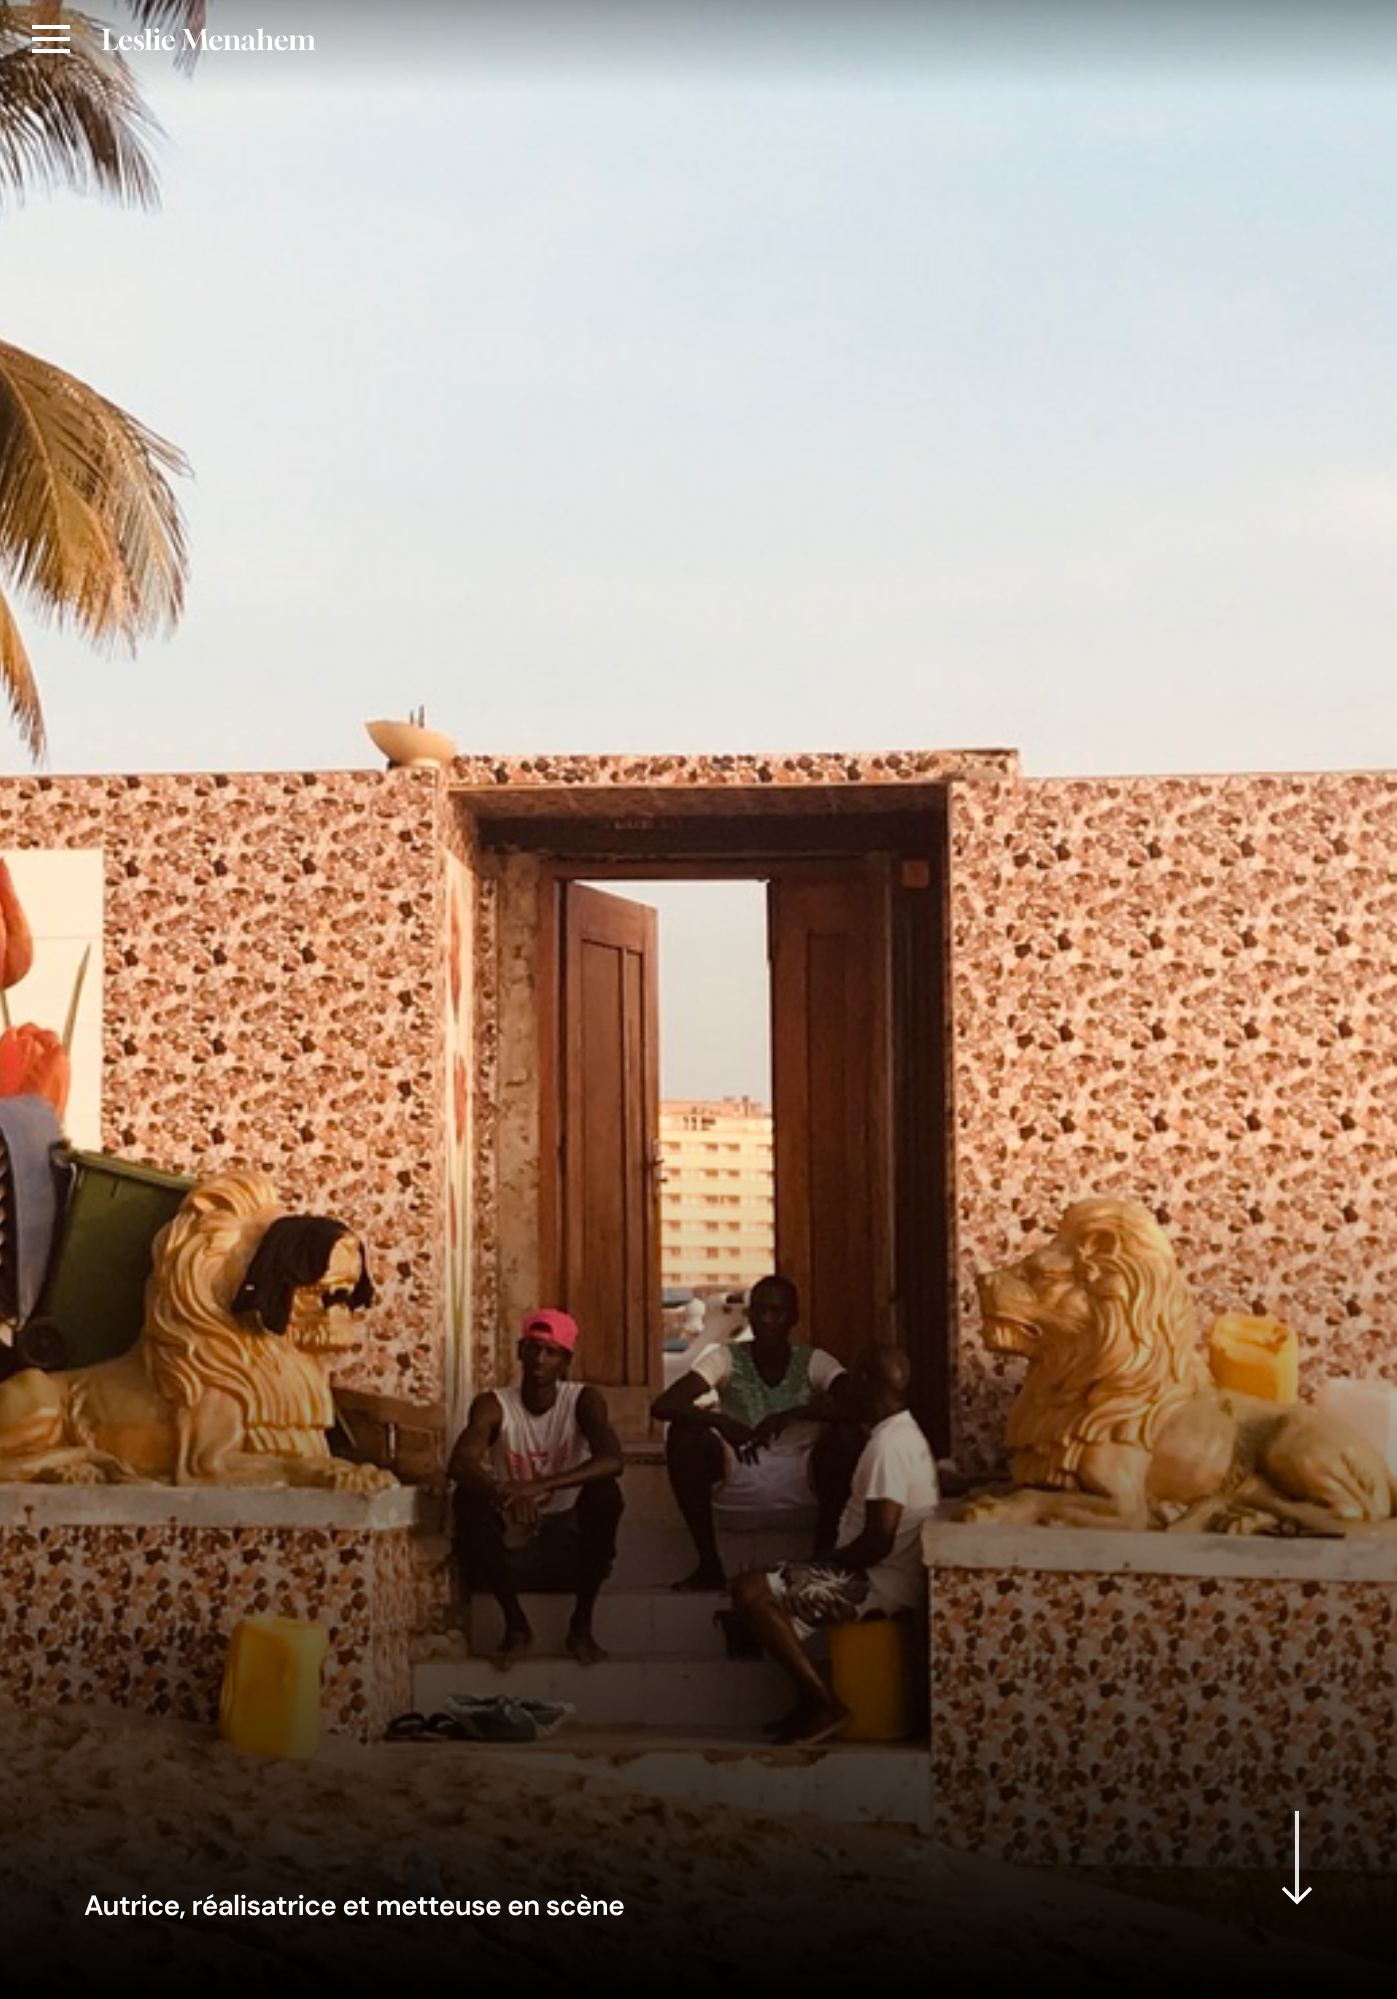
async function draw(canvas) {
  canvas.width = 1397;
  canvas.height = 1999;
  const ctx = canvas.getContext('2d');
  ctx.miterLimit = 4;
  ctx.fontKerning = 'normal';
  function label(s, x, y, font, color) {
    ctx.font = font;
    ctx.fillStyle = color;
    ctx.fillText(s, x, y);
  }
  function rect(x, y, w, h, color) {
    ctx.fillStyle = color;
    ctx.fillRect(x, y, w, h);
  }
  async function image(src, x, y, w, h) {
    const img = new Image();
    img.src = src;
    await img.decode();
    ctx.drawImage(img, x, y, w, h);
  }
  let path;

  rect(0, 0, 1397, 1999, '#fff');
  await image('assets/img1.png', 0, 0, 1397, 1999);
  rect(32, 25, 38, 4, '#fff');
  rect(32, 49, 38, 4, '#fff');
  rect(32, 37, 38, 4, '#fff');
  ctx.letterSpacing = '0.25px';
  label('Leslie Menahem', 102, 50, '28px Gloock', '#fff');
  ctx.letterSpacing = '-0.6px';
  label('Autrice, réalisatrice et metteuse en scène', 84, 1915, '600 28px DM Sans', '#fff');
  rect(1295, 1811, 4, 90, '#ffffffe0');
  path = new Path2D('M1283 1888L1297 1902L1311 1888');
  ctx.strokeStyle = '#fff';
  ctx.lineWidth = 3.5;
  ctx.stroke(path);
}

draw(document.querySelector('canvas'));
